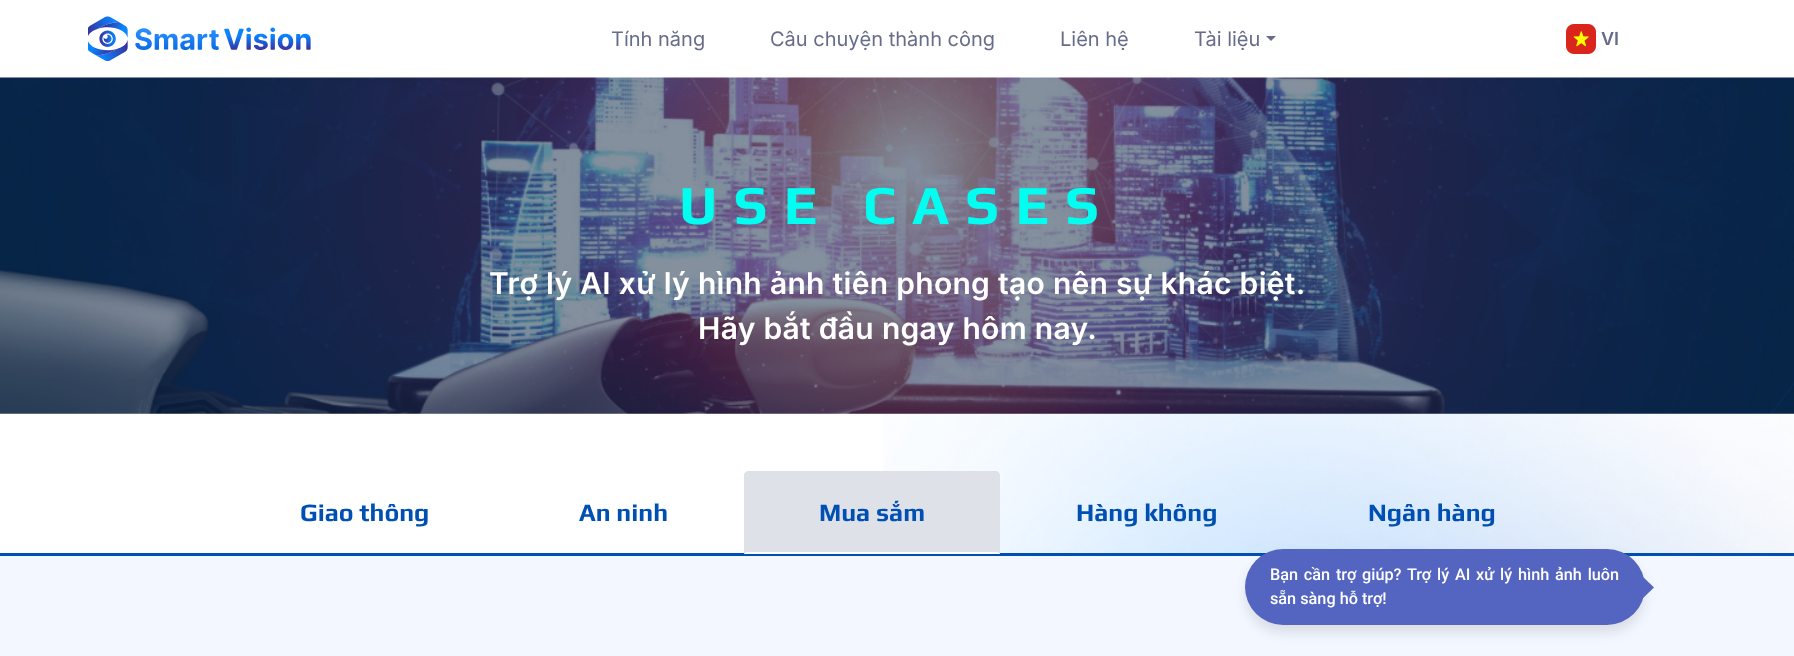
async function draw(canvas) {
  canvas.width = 1794;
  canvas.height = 656;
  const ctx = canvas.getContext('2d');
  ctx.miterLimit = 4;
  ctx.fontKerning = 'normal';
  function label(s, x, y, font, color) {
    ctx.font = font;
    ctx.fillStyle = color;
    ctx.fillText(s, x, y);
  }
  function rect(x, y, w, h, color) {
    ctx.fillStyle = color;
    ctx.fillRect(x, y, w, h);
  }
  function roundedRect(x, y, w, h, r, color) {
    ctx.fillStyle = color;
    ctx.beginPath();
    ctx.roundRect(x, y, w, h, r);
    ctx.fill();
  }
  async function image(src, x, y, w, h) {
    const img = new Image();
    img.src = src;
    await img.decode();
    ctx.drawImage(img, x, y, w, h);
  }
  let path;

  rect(0, 0, 1794, 656, '#fff');
  await image('assets/img1.png', 88, 16, 223, 45);
  label('Tính năng', 611, 46, '20px Inter', '#666c8a');
  label('Câu chuyện thành công', 770, 46, '20px Inter', '#666c8a');
  label('Liên hệ', 1060, 46, '20px Inter', '#666c8a');
  label('Tài liệu', 1194, 46, '20px Inter', '#666c8a');
  path = new Path2D('M1266 36H1276L1271 41Z');
  ctx.fill(path);
  await image('assets/img2.png', 1566, 24, 30, 30);
  label('VI', 1601, 45, '600 18px Inter', '#666c8a');
  await image('assets/img3.png', 883, 413, 911, 140);
  await image('assets/img4.png', 0, 77, 1794, 337);
  ctx.letterSpacing = '16.5px';
  label('USE CASES', 679, 224, 'bold 55px Play', '#00fff0');
  ctx.letterSpacing = '0.3px';
  label('Trợ lý AI xử lý hình ảnh tiên phong tạo nên sự khác biệt.', 489, 294, '600 30px Inter', '#fff');
  label('Hãy bắt đầu ngay hôm nay.', 698, 339, '600 30px Inter', '#fff');
  rect(0, 553, 1794, 3, '#0050b3');
  ctx.letterSpacing = '0px';
  label('Giao thông', 300, 521, 'bold 25px Play', '#0050b3');
  label('An ninh', 579, 521, 'bold 25px Play', '#0050b3');
  ctx.fillStyle = '#dee1e7';
  ctx.beginPath();
  ctx.roundRect(744, 471, 256, 83, [5, 5, 0, 0]);
  ctx.fill();
  ctx.fillStyle = '#dee2e6';
  path = new Path2D('M749 472C748 472 747 473 746 474L745 473L747 471H997L999 473H998L995 472Z');
  ctx.fill(path);
  path = new Path2D('M1000 554V475L999 473H998L999 476V552H998Z');
  ctx.fill(path);
  ctx.fillStyle = '#fff';
  path = new Path2D('M1000 554H744L746 552H998Z');
  ctx.fill(path);
  ctx.fillStyle = '#dee2e6';
  path = new Path2D('M744 554V476C744 475 744 473 745 473L746 474L745 476V552H746Z');
  ctx.fill(path);
  label('Mua sắm', 819, 521, 'bold 25px Play', '#0050b3');
  label('Hàng không', 1076, 521, 'bold 25px Play', '#0050b3');
  label('Ngân hàng', 1368, 521, 'bold 25px Play', '#0050b3');
  rect(0, 556, 1794, 100, '#f3f7ff');
  ctx.fillStyle = '#0000001a';
  ctx.filter = 'blur(6px)';
  ctx.beginPath();
  ctx.roundRect(1245, 556, 400, 77, 38);
  ctx.fill();
  ctx.filter = 'none';
  roundedRect(1245, 549, 400, 76, 38, '#5365c0');
  ctx.wordSpacing = '1.75px';
  label('Bạn cần trợ giúp? Trợ lý AI xử lý hình ảnh luôn', 1270, 580, '500 16.25px Roboto', '#fff');
  ctx.fillStyle = '#5365c0';
  path = new Path2D('M1641 600V575L1654 587.5Z');
  ctx.fill(path);
  ctx.wordSpacing = '0px';
  label('sẵn sàng hỗ trợ!', 1270, 604, '500 16.25px Roboto', '#fff');
}

draw(document.querySelector('canvas'));
